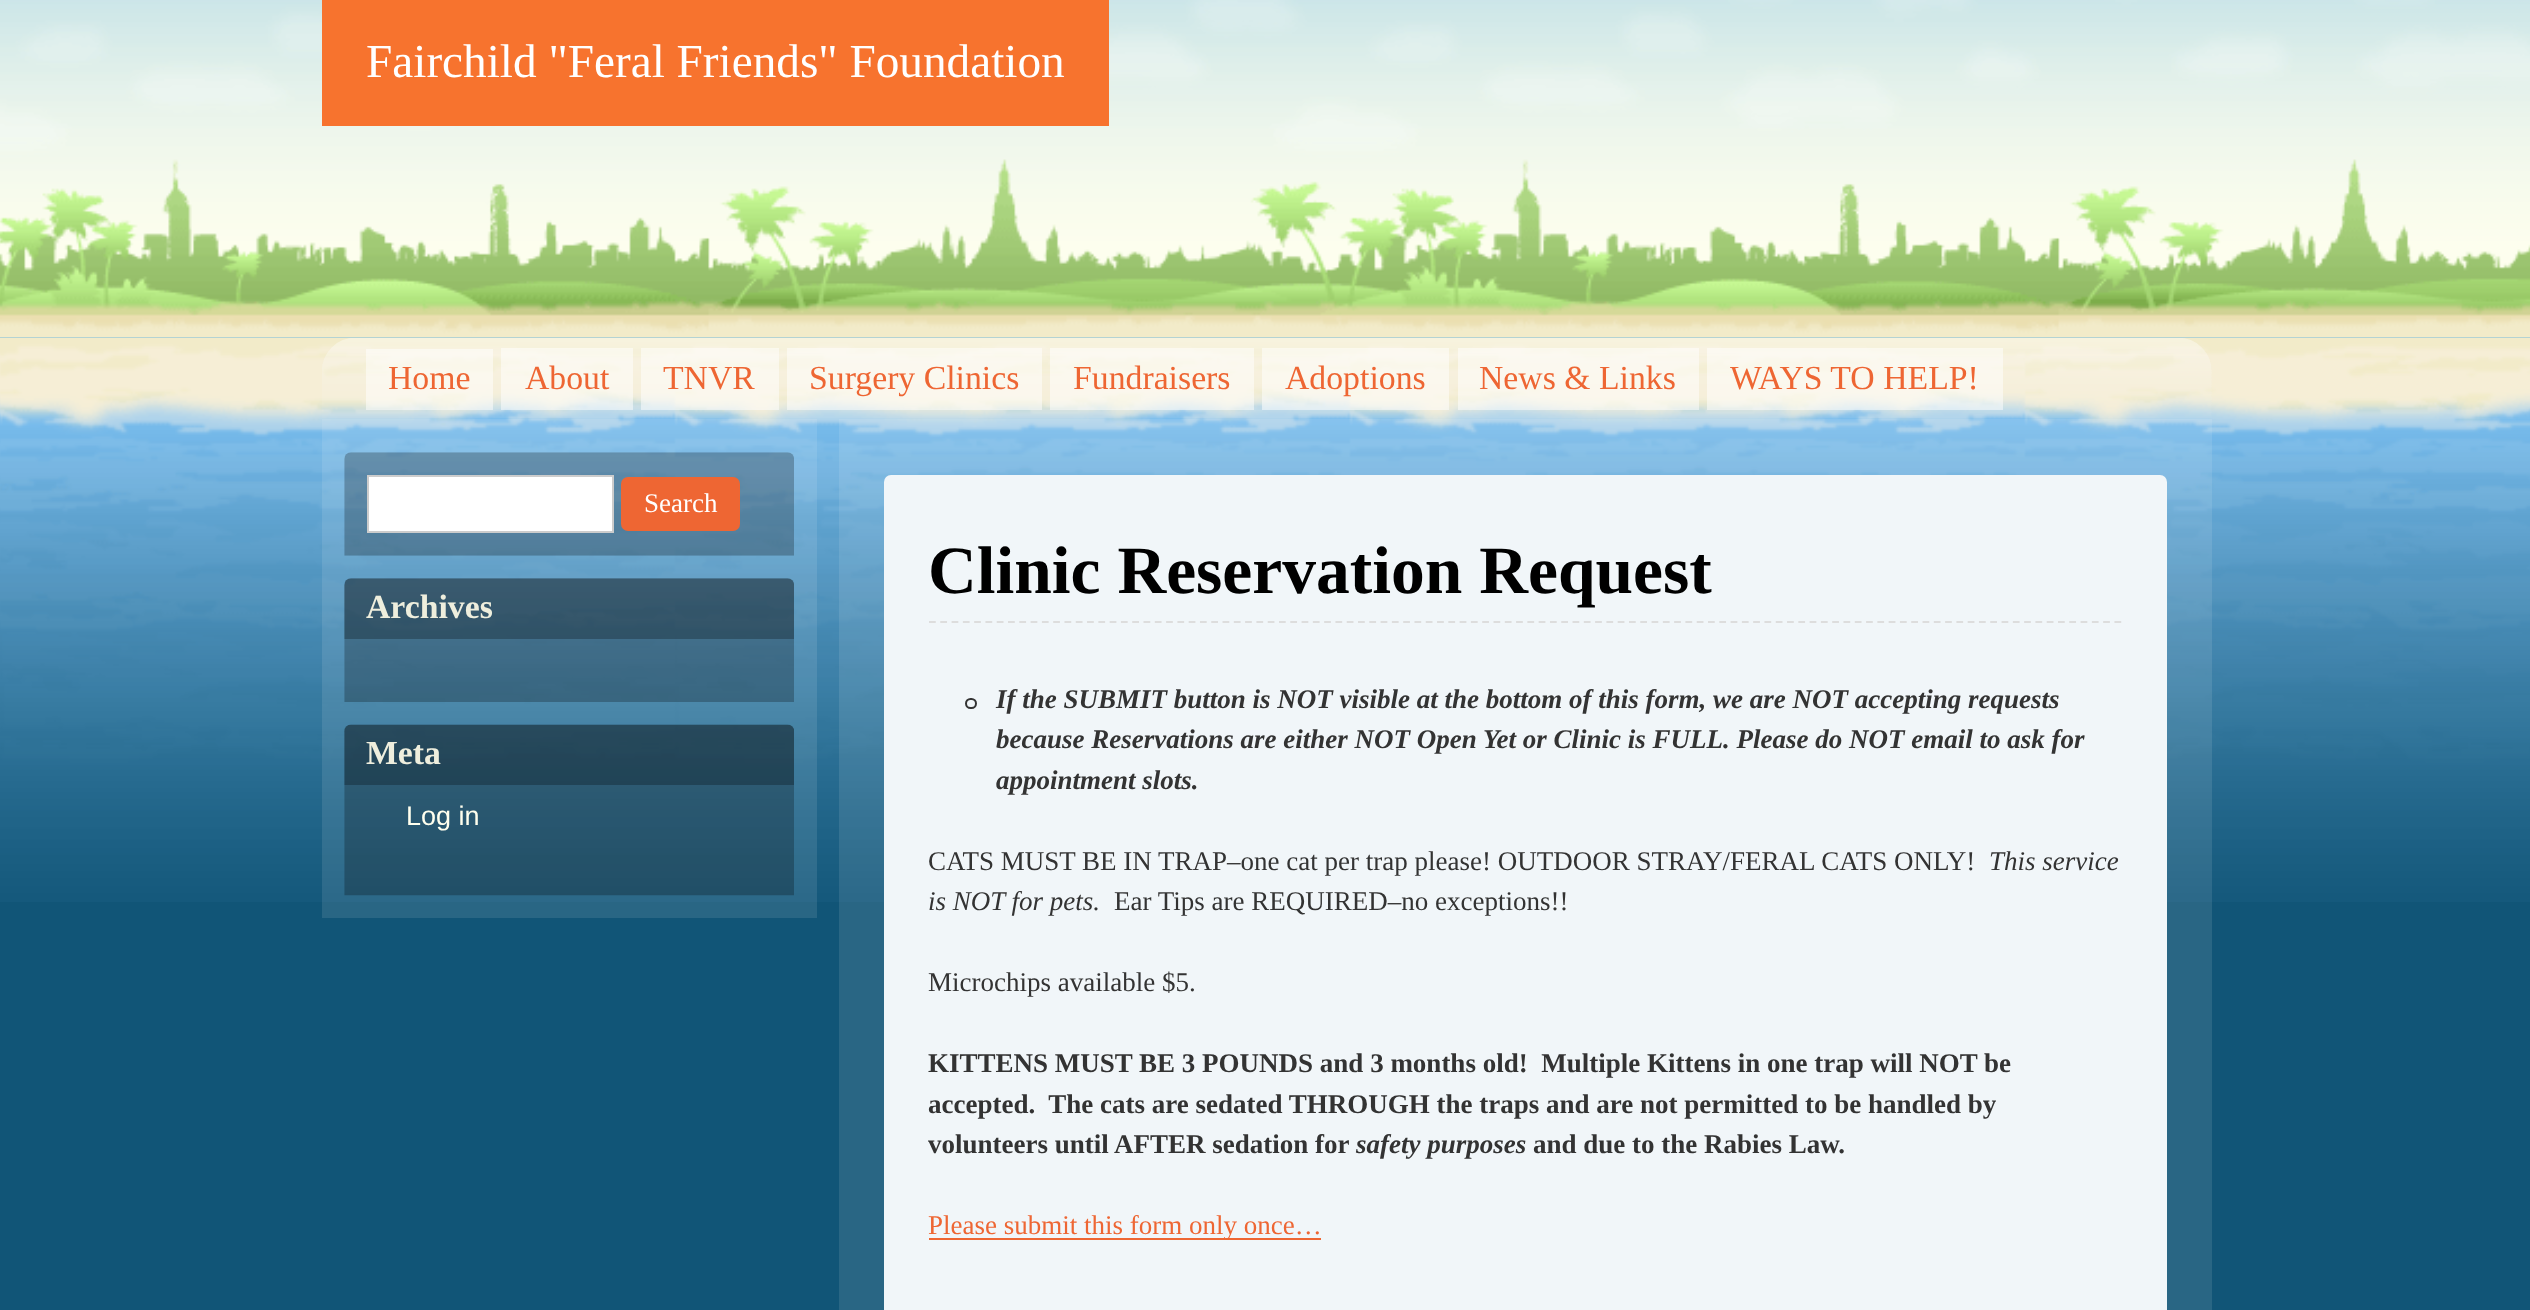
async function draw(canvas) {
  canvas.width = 2530;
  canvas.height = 1310;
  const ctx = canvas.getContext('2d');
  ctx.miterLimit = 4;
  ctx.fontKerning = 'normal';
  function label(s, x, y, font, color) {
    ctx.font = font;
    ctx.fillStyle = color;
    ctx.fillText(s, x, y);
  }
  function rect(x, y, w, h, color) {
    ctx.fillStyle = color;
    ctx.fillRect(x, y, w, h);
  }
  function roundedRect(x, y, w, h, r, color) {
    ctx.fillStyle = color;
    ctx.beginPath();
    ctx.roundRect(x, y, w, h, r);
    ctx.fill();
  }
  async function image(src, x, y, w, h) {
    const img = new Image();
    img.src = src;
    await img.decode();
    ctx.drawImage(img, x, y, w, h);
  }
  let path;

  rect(0, 0, 2530, 1310, '#157');
  rect(0, 337, 2530, 1, '#7bd');
  await image('assets/img1.png', 0, 0, 2530, 338);
  rect(322, 0, 787, 126, '#f7732e');
  label('Fairchild "Feral Friends" Foundation', 366, 77, '47.25px Liberation Serif', '#fff');
  await image('assets/img2.png', 0, 338, 2530, 564);
  await image('assets/img3.png', 322, 338, 1890, 80);
  rect(366, 349, 127, 61, '#ffffff80');
  label('Home', 388, 389, '33.75px Liberation Serif', '#e63');
  rect(501, 348, 132, 62, '#ffffff80');
  label('About', 525, 389, '33.75px Liberation Serif', '#e63');
  rect(641, 348, 138, 62, '#ffffff80');
  label('TNVR', 663, 389, '33.75px Liberation Serif', '#e63');
  rect(787, 348, 255, 62, '#ffffff80');
  label('Surgery Clinics', 809, 389, '33.75px Liberation Serif', '#e63');
  rect(1050, 348, 204, 62, '#ffffff80');
  label('Fundraisers', 1073, 389, '33.75px Liberation Serif', '#e63');
  rect(1262, 348, 187, 62, '#ffffff80');
  label('Adoptions', 1285, 389, '33.75px Liberation Serif', '#e63');
  rect(1458, 348, 241, 62, '#ffffff80');
  label('News & Links', 1479, 389, '33.75px Liberation Serif', '#e63');
  rect(1707, 348, 296, 62, '#ffffff80');
  label('WAYS TO HELP!', 1730, 389, '33.75px Liberation Serif', '#e63');
  rect(322, 419, 495, 499, '#ffffff1a');
  await image('assets/img4.png', 344, 452, 450, 104);
  ctx.fillStyle = '#fff';
  ctx.beginPath();
  ctx.rect(368, 476, 245, 56);
  ctx.fill();
  ctx.strokeStyle = '#ccc';
  ctx.lineWidth = 2;
  ctx.stroke();
  roundedRect(621, 477, 119, 54, 7, '#e63');
  label('Search', 644, 512, '27px Liberation Serif', '#fff');
  await image('assets/img5.png', 344, 578, 450, 124);
  await image('assets/img6.png', 344, 578, 450, 61);
  label('Archives', 366, 618, 'bold 33.75px Liberation Serif', '#eed');
  await image('assets/img7.png', 344, 724, 450, 172);
  await image('assets/img8.png', 344, 724, 450, 61);
  label('Meta', 366, 764, 'bold 33.75px Liberation Serif', '#eed');
  label('Log in', 406, 825, '27px Liberation Sans', '#ffe');
  rect(839, 419, 1373, 891, '#ffffff1a');
  roundedRect(884, 475, 1283, 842, 7, '#f1f6f9');
  path = new Path2D('M929 622H2122');
  ctx.strokeStyle = '#ddd';
  ctx.lineWidth = 2.2;
  ctx.setLineDash([6.75, 4.54]);
  ctx.stroke(path);
  label('Clinic Reservation Request', 928, 593, 'bold 67.5px Liberation Serif', '#000');
  ctx.beginPath();
  ctx.roundRect(966, 699, 10, 9, 4.5);
  ctx.strokeStyle = '#333';
  ctx.lineWidth = 2;
  ctx.setLineDash([]);
  ctx.stroke();
  label('If the SUBMIT button is NOT visible at the bottom of this form, we are NOT accepting requests', 996, 708, 'italic bold 27px Liberation Serif', '#333');
  label('because Reservations are either NOT Open Yet or Clinic is FULL. Please do NOT email to ask for', 996, 748, 'italic bold 27px Liberation Serif', '#333');
  label('appointment slots.', 996, 789, 'italic bold 27px Liberation Serif', '#333');
  label('CATS MUST BE IN TRAP–one cat per trap please! OUTDOOR STRAY/FERAL CATS ONLY!', 928, 870, '27px Liberation Serif', '#333');
  label('This service', 1989, 870, 'italic 27px Liberation Serif', '#333');
  label('is NOT for pets.', 928, 910, 'italic 27px Liberation Serif', '#333');
  label('Ear Tips are REQUIRED–no exceptions!!', 1114, 910, '27px Liberation Serif', '#333');
  label('Microchips available $5.', 928, 991, '27px Liberation Serif', '#333');
  label('KITTENS MUST BE 3 POUNDS and 3 months old!  Multiple Kittens in one trap will NOT be', 928, 1072, 'bold 27px Liberation Serif', '#333');
  label('accepted.  The cats are sedated THROUGH the traps and are not permitted to be handled by', 928, 1113, 'bold 27px Liberation Serif', '#333');
  label('volunteers until AFTER sedation for', 928, 1153, 'bold 27px Liberation Serif', '#333');
  label('safety purposes', 1356, 1153, 'italic bold 27px Liberation Serif', '#333');
  label('and due to the Rabies Law.', 1533, 1153, 'bold 27px Liberation Serif', '#333');
  rect(929, 1238, 392, 2, '#e63');
  label('Please submit this form only once…', 928, 1234, '27px Liberation Serif', '#e63');
}

draw(document.querySelector('canvas'));
